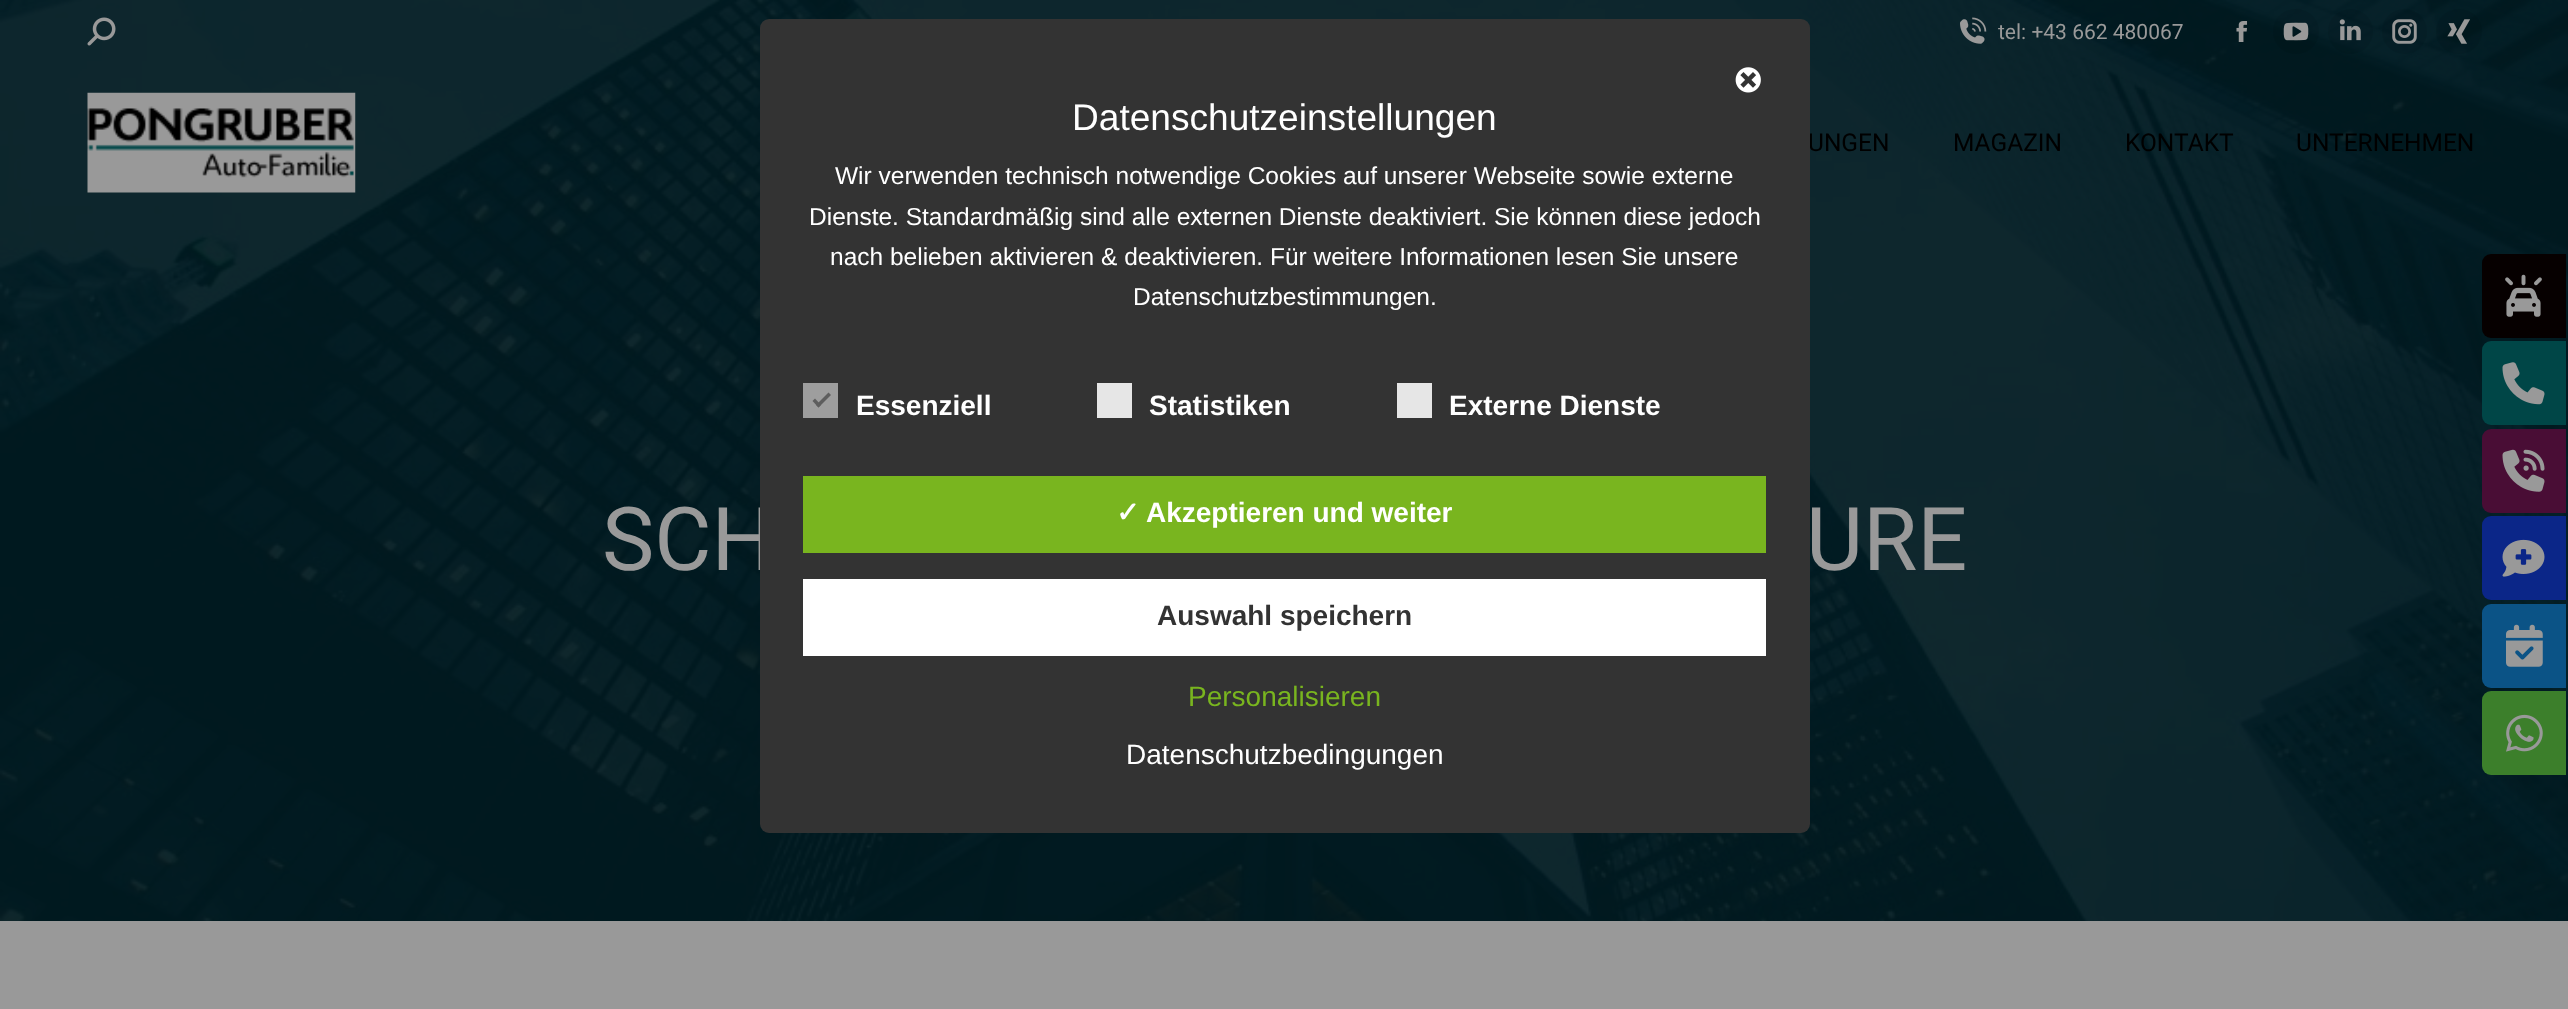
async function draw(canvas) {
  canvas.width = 2568;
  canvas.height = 1009;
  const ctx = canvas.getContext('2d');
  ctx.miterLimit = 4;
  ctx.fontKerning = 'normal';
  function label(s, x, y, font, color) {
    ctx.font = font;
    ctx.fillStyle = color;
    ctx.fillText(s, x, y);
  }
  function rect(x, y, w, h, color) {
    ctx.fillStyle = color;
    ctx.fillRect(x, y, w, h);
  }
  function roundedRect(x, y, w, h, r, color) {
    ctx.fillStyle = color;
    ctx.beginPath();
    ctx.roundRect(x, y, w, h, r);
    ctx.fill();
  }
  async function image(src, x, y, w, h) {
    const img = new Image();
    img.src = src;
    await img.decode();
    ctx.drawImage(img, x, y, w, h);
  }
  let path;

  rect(0, 0, 2568, 1009, '#999');
  await image('assets/img9.png', 0, 0, 2568, 921);
  await image('assets/img1.png', 87, 17, 29, 29);
  await image('assets/img2.png', 1960, 17, 27, 27);
  label('tel: +43 662 480067', 1998, 39, '21px Roboto', '#999');
  await image('assets/img3.png', 2236, 21, 12, 21);
  roundedRect(2273, 9, 46, 45, 22.5, '#00000012');
  await image('assets/img4.png', 2283, 22, 26, 19);
  ctx.beginPath();
  ctx.arc(2350.5, 31.5, 22.5, 0, 2 * Math.PI);
  ctx.fill();
  await image('assets/img5.png', 2339, 19, 22, 22);
  ctx.beginPath();
  ctx.arc(2404.5, 31.5, 22.5, 0, 2 * Math.PI);
  ctx.fill();
  await image('assets/img6.png', 2392, 19, 25, 25);
  roundedRect(2436, 9, 46, 45, 22.5, '#00000012');
  await image('assets/img7.png', 2447, 19, 23, 25);
  await image('assets/img8.png', 87, 92, 269, 101);
  label('UNGEN', 1808, 151, '24.5px Roboto', '#000');
  label('MAGAZIN', 1953, 151, '24.5px Roboto', '#000');
  label('KONTAKT', 2125, 151, '24.5px Roboto', '#000');
  label('UNTERNEHMEN', 2296, 151, '24.5px Roboto', '#000');
  label('SCH', 602, 570, '88px Roboto', '#999');
  label('URE', 1806, 570, '88px Roboto', '#999');
  roundedRect(760, 19, 1050, 814, 9, '#333');
  await image('assets/img10.png', 1735, 67, 26, 26);
  label('Datenschutzeinstellungen', 1072, 130, '37.1px Liberation Sans', '#fff');
  label('Wir verwenden technisch notwendige Cookies auf unserer Webseite sowie externe', 835, 184, '24.5px Liberation Sans', '#fff');
  label('Dienste. Standardmäßig sind alle externen Dienste deaktiviert. Sie können diese jedoch', 809, 225, '24.5px Liberation Sans', '#fff');
  label('nach belieben aktivieren & deaktivieren. Für weitere Informationen lesen Sie unsere', 830, 265, '24.5px Liberation Sans', '#fff');
  label('Datenschutzbestimmungen.', 1133, 305, '24.5px Liberation Sans', '#fff');
  rect(803, 383, 35, 35, '#9e9e9e');
  ctx.fillStyle = '#5e5e5e';
  path = new Path2D('M828.5 392.5L831 395L818.5 407.5L816 405Z');
  ctx.fill(path);
  path = new Path2D('M815 398.5L821 405L818.5 407.5L812.5 401Z');
  ctx.fill(path);
  label('Essenziell', 856, 415, 'bold 28px Liberation Sans', '#fff');
  rect(1097, 383, 35, 35, '#e6e6e6');
  label('Statistiken', 1149, 415, 'bold 28px Liberation Sans', '#fff');
  rect(1397, 383, 35, 35, '#e6e6e6');
  label('Externe Dienste', 1449, 415, 'bold 28px Liberation Sans', '#fff');
  rect(803, 476, 963, 77, '#79b51f');
  label('✓', 1116, 522, 'bold 28px DejaVu Sans', '#fff');
  label('Akzeptieren und weiter', 1146, 522, 'bold 28px Liberation Sans', '#fff');
  rect(803, 579, 963, 77, '#fff');
  label('Auswahl speichern', 1157, 625, 'bold 28px Liberation Sans', '#333');
  label('Personalisieren', 1188, 706, '28px Liberation Sans', '#79b51f');
  label('Datenschutzbedingungen', 1126, 764, '28px Liberation Sans', '#fff');
  ctx.fillStyle = '#060000';
  ctx.beginPath();
  ctx.roundRect(2482, 254, 84, 84, [9, 0, 0, 9]);
  ctx.fill();
  await image('assets/img11.png', 2505, 274, 37, 43);
  ctx.fillStyle = '#004647';
  ctx.beginPath();
  ctx.roundRect(2482, 341, 84, 84, [9, 0, 0, 9]);
  ctx.fill();
  await image('assets/img12.png', 2502, 362, 43, 43);
  ctx.fillStyle = '#490d35';
  ctx.beginPath();
  ctx.roundRect(2482, 429, 84, 84, [9, 0, 0, 9]);
  ctx.fill();
  await image('assets/img13.png', 2502, 449, 43, 43);
  ctx.fillStyle = '#0b2688';
  ctx.beginPath();
  ctx.roundRect(2482, 516, 84, 84, [9, 0, 0, 9]);
  ctx.fill();
  await image('assets/img14.png', 2502, 539, 43, 38);
  ctx.fillStyle = '#0b5386';
  ctx.beginPath();
  ctx.roundRect(2482, 604, 84, 84, [9, 0, 0, 9]);
  ctx.fill();
  await image('assets/img15.png', 2506, 624, 37, 43);
  ctx.fillStyle = '#3c7f2b';
  ctx.beginPath();
  ctx.roundRect(2482, 691, 84, 84, [9, 0, 0, 9]);
  ctx.fill();
  await image('assets/img16.png', 2506, 714, 37, 38);
}

draw(document.querySelector('canvas'));
